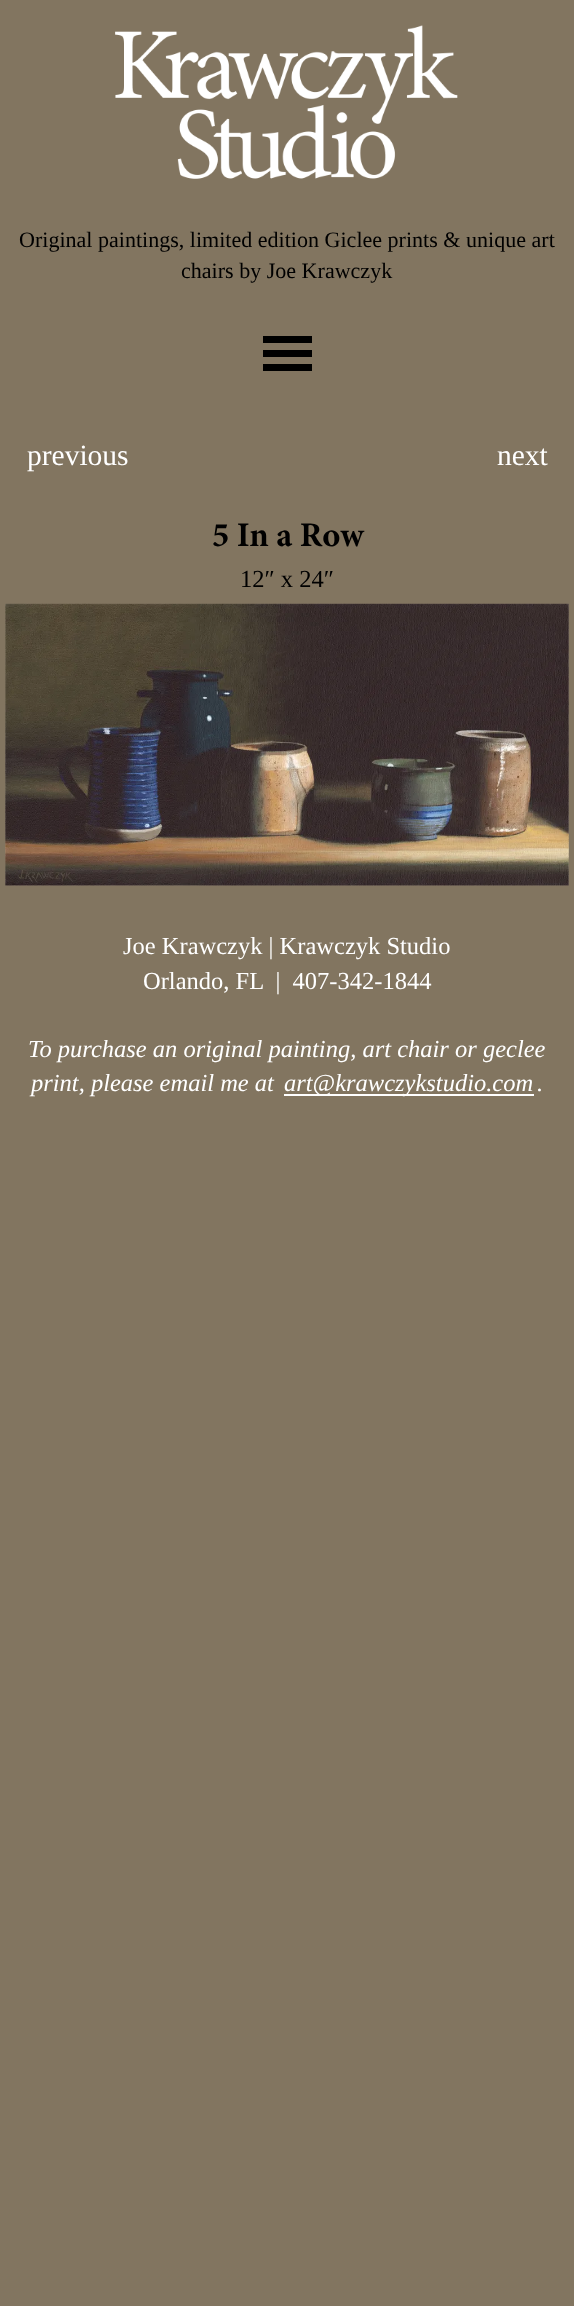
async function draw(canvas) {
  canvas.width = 574;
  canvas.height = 2306;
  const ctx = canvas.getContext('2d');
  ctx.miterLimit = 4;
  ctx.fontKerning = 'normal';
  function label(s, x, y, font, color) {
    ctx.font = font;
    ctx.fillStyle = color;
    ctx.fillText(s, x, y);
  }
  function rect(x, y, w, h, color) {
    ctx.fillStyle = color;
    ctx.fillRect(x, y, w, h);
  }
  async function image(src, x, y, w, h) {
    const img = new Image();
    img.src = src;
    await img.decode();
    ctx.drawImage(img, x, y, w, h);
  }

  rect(0, 0, 574, 2306, '#827560');
  await image('assets/img1.png', 115, 25, 343, 154);
  label('Original paintings, limited edition Giclee prints & unique art', 19, 247, '22.05px Liberation Serif', '#000');
  label('chairs by Joe Krawczyk', 181, 278, '22.05px Liberation Serif', '#000');
  rect(263, 336, 49, 7, '#000');
  rect(263, 350, 49, 7, '#000');
  rect(263, 364, 49, 7, '#000');
  label('previous', 27, 465, '29.5px Liberation Serif', '#fff');
  label('next', 497, 465, '29.5px Liberation Serif', '#fff');
  label('5 In a Row', 212, 546, 'bold 34.5px Minion', '#000');
  label('12″ x 24″', 240, 587, '24.5px Liberation Serif', '#000');
  await image('assets/img2.png', 5, 603, 564, 283);
  label('Joe Krawczyk | Krawczyk Studio', 123, 954, '24.5px Liberation Serif', '#fff');
  label('Orlando, FL  |  407-342-1844', 143, 989, '24.5px Liberation Serif', '#fff');
  label('To purchase an original painting, art chair or geclee', 28, 1057, 'italic 24.5px Liberation Serif', '#fff');
  label('print, please email me at', 31, 1091, 'italic 24.5px Liberation Serif', '#fff');
  rect(284, 1094, 250, 2, '#fff');
  label('art@krawczykstudio.com', 284, 1091, 'italic 24.5px Liberation Serif', '#fff');
  label('.', 537, 1091, 'italic 24.5px Liberation Serif', '#fff');
}

draw(document.querySelector('canvas'));
